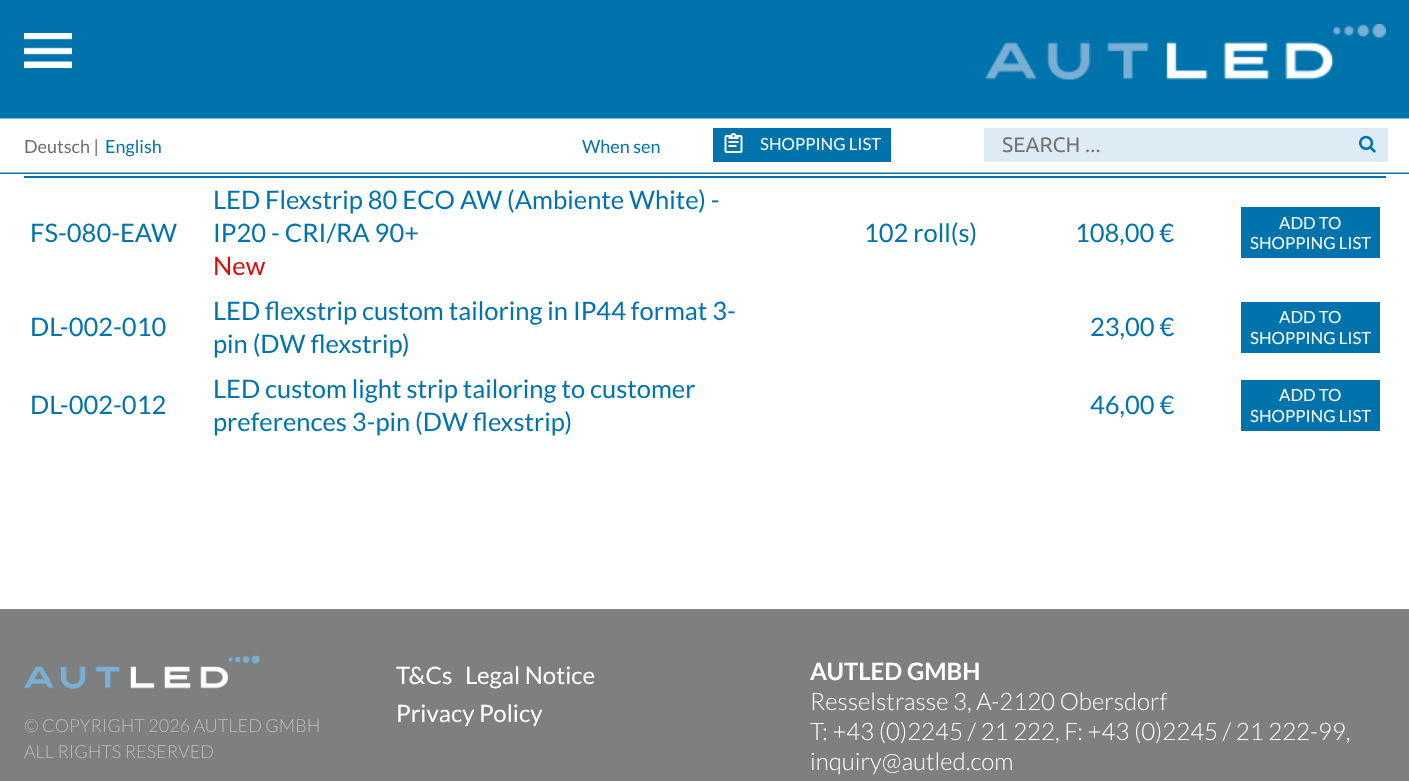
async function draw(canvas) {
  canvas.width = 1409;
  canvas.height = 781;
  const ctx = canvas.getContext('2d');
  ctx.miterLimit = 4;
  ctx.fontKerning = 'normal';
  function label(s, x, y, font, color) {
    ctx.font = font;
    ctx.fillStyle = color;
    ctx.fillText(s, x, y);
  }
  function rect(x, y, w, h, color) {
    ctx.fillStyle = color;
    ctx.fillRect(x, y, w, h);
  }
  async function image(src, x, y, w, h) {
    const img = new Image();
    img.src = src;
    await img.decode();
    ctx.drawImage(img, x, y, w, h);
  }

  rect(0, 0, 1409, 781, '#fff');
  await image('assets/img1.png', 0, 0, 1409, 174);
  await image('assets/img2.png', 24, 33, 48, 35);
  await image('assets/img3.png', 985, 24, 401, 56);
  label('Deutsch |', 24, 153, '18px Lato', '#6e6e6e');
  label('English', 105, 153, '18px Lato', '#0073ac');
  label('When sen', 582, 153, '18px Lato', '#0073ac');
  rect(713, 128, 178, 34, '#0073ac');
  await image('assets/img4.png', 724, 133, 19, 20);
  label('SHOPPING LIST', 760, 150, '16.75px Lato', '#fff');
  rect(984, 128, 404, 34, '#ddebf4');
  label('SEARCH ...', 1002, 152, '21px Ubuntu', '#757575');
  await image('assets/img5.png', 1359, 135, 17, 18);
  rect(24, 176, 1362, 2, '#0073ac');
  label('FS-080-EAW', 30, 242, '25.5px Lato', '#0073ac');
  label('LED Flexstrip 80 ECO AW (Ambiente White) -', 213, 209, '25.5px Lato', '#0073ac');
  label('IP20 - CRI/RA 90+', 213, 242, '25.5px Lato', '#0073ac');
  label('New', 213, 275, '25.5px Lato', '#dc0a00');
  label('102 roll(s)', 864, 242, '25.5px Lato', '#0073ac');
  label('108,00 €', 1075, 242, '25.5px Lato', '#0073ac');
  rect(1241, 207, 139, 51, '#0073ac');
  label('ADD TO', 1279, 229, '16.75px Lato', '#fff');
  label('SHOPPING LIST', 1250, 249, '16.75px Lato', '#fff');
  label('DL-002-010', 30, 336, '25.5px Lato', '#0073ac');
  label('LED flexstrip custom tailoring in IP44 format 3-', 213, 320, '25.5px Lato', '#0073ac');
  label('pin (DW flexstrip)', 213, 353, '25.5px Lato', '#0073ac');
  label('23,00 €', 1090, 336, '25.5px Lato', '#0073ac');
  rect(1241, 302, 139, 51, '#0073ac');
  label('ADD TO', 1279, 323, '16.75px Lato', '#fff');
  label('SHOPPING LIST', 1250, 344, '16.75px Lato', '#fff');
  label('DL-002-012', 30, 414, '25.5px Lato', '#0073ac');
  label('LED custom light strip tailoring to customer', 213, 398, '25.5px Lato', '#0073ac');
  label('preferences 3-pin (DW flexstrip)', 213, 431, '25.5px Lato', '#0073ac');
  label('46,00 €', 1090, 414, '25.5px Lato', '#0073ac');
  rect(1241, 380, 139, 51, '#0073ac');
  label('ADD TO', 1279, 401, '16.75px Lato', '#fff');
  label('SHOPPING LIST', 1250, 422, '16.75px Lato', '#fff');
  rect(0, 609, 1409, 172, '#7e8080');
  label('T&Cs', 396, 684, '24px Lato', '#fff');
  label('Legal Notice', 465, 684, '24px Lato', '#fff');
  label('Privacy Policy', 396, 722, '24px Lato', '#fff');
  label('AUTLED GMBH', 810, 680, 'bold 24px Lato', '#fff');
  label('Resselstrasse 3, A-2120 Obersdorf', 810, 710, '300 24px Lato', '#fff');
  label('T: +43 (0)2245 / 21 222, F: +43 (0)2245 / 21 222-99,', 810, 740, '300 24px Lato', '#fff');
  label('inquiry@autled.com', 810, 770, '300 24px Lato', '#fff');
  await image('assets/img6.png', 24, 655, 236, 34);
  label('© COPYRIGHT 2026 AUTLED GMBH', 24, 732, '300 18px Lato', '#bcbcbc');
  label('ALL RIGHTS RESERVED', 24, 758, '300 18px Lato', '#bcbcbc');
}

draw(document.querySelector('canvas'));
